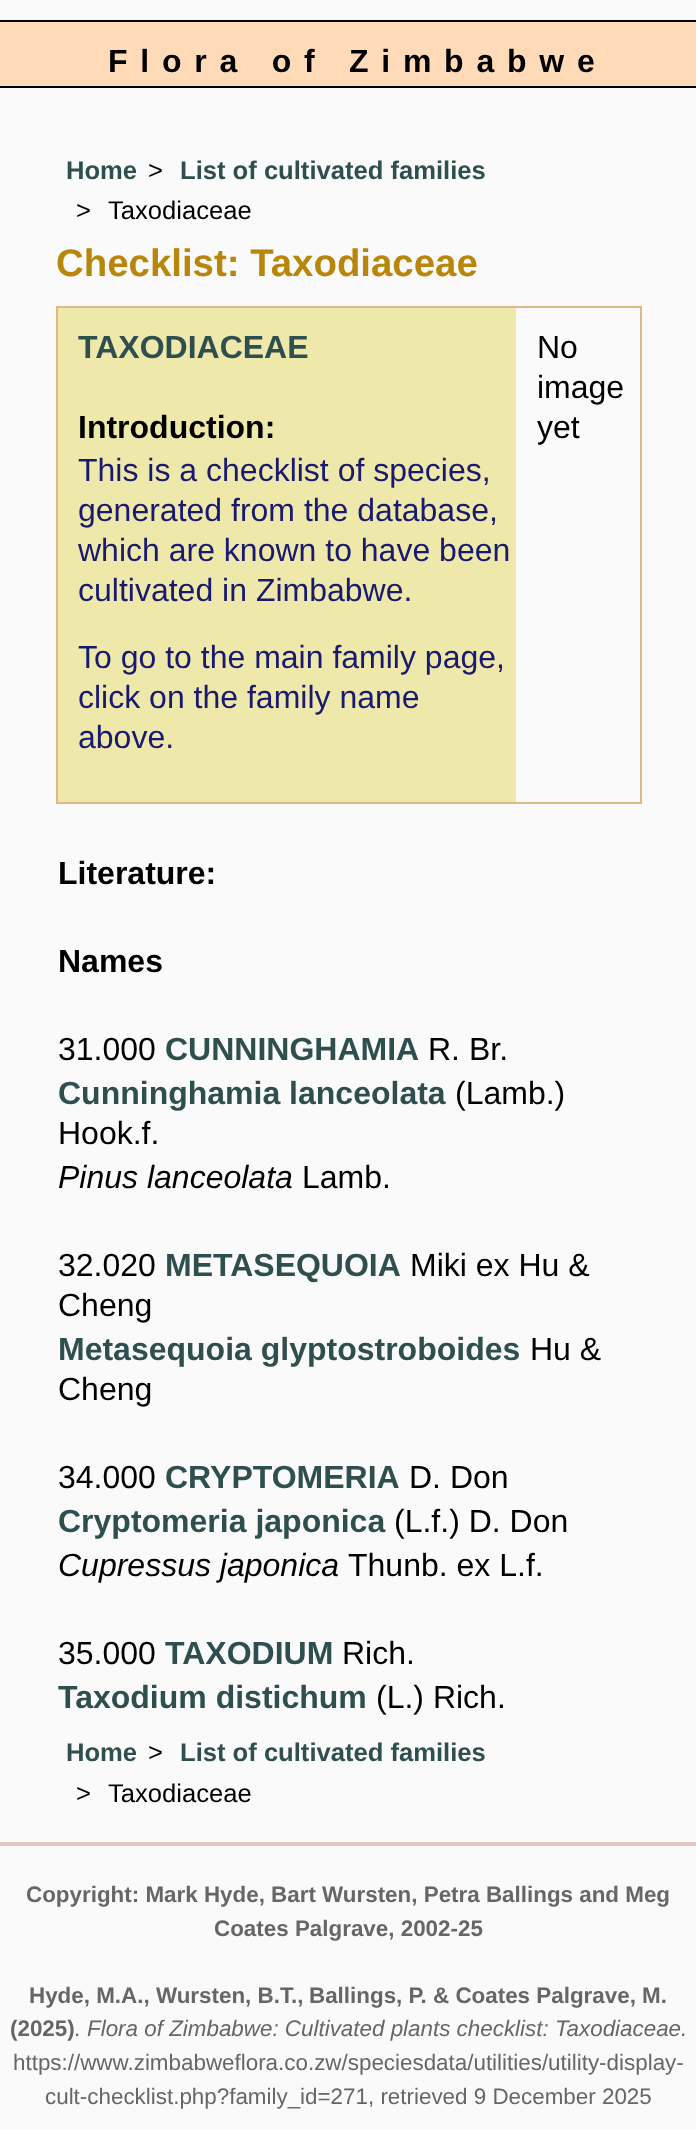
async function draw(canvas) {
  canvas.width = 696;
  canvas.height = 2130;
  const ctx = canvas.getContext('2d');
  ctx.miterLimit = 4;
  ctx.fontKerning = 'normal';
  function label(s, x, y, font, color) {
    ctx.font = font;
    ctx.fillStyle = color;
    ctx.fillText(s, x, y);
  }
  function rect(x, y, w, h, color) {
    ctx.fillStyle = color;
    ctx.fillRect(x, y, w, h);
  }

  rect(0, 0, 696, 2130, '#fafafa');
  rect(0, 22, 696, 64, '#ffdab9');
  rect(0, 20, 696, 2, '#000');
  rect(0, 86, 696, 2, '#000');
  ctx.letterSpacing = '12.75px';
  label('Flora of Zimbabwe', 108, 72, 'bold 32px Liberation Sans', '#000');
  ctx.letterSpacing = '0px';
  label('Home', 66, 179, 'bold 25.6px Liberation Sans', '#2f4f4f');
  label('>', 148, 179, '25.6px Liberation Sans', '#000');
  label('List of cultivated families', 180, 179, 'bold 25.6px Liberation Sans', '#2f4f4f');
  label('>', 76, 219, '25.6px Liberation Sans', '#000');
  label('Taxodiaceae', 108, 219, '25.6px Liberation Sans', '#000');
  label('Checklist: Taxodiaceae', 56, 276, 'bold 38.4px Liberation Sans', '#b8860b');
  rect(56, 306, 586, 2, '#deb887');
  rect(640, 306, 2, 498, '#deb887');
  rect(56, 802, 586, 2, '#deb887');
  rect(56, 306, 2, 498, '#deb887');
  rect(58, 308, 458, 494, '#eee8aa');
  label('TAXODIACEAE', 78, 358, 'bold 32px Liberation Sans', '#2f4f4f');
  label('Introduction:', 78, 438, 'bold 32px Liberation Sans', '#000');
  label('This is a checklist of species,', 78, 481, '32px Liberation Sans', '#191970');
  label('generated from the database,', 78, 521, '32px Liberation Sans', '#191970');
  label('which are known to have been', 78, 561, '32px Liberation Sans', '#191970');
  label('cultivated in Zimbabwe.', 78, 601, '32px Liberation Sans', '#191970');
  label('To go to the main family page,', 78, 668, '32px Liberation Sans', '#191970');
  label('click on the family name', 78, 708, '32px Liberation Sans', '#191970');
  label('above.', 78, 748, '32px Liberation Sans', '#191970');
  label('No', 537, 358, '32px Liberation Sans', '#000');
  label('image', 537, 398, '32px Liberation Sans', '#000');
  label('yet', 537, 438, '32px Liberation Sans', '#000');
  label('Literature:', 58, 884, 'bold 32px Liberation Sans', '#000');
  label('Names', 58, 972, 'bold 32px Liberation Sans', '#000');
  label('31.000', 58, 1060, '32px Liberation Sans', '#000');
  label('CUNNINGHAMIA', 165, 1060, 'bold 32px Liberation Sans', '#2f4f4f');
  label('R. Br.', 428, 1060, '32px Liberation Sans', '#000');
  label('Cunninghamia lanceolata', 58, 1104, 'bold 32px Liberation Sans', '#2f4f4f');
  label('(Lamb.)', 455, 1104, '32px Liberation Sans', '#000');
  label('Hook.f.', 58, 1144, '32px Liberation Sans', '#000');
  label('Pinus lanceolata', 58, 1188, 'italic 32px Liberation Sans', '#000');
  label('Lamb.', 302, 1188, '32px Liberation Sans', '#000');
  label('32.020', 58, 1276, '32px Liberation Sans', '#000');
  label('METASEQUOIA', 165, 1276, 'bold 32px Liberation Sans', '#2f4f4f');
  label('Miki ex Hu &', 410, 1276, '32px Liberation Sans', '#000');
  label('Cheng', 58, 1316, '32px Liberation Sans', '#000');
  label('Metasequoia glyptostroboides', 58, 1360, 'bold 32px Liberation Sans', '#2f4f4f');
  label('Hu &', 530, 1360, '32px Liberation Sans', '#000');
  label('Cheng', 58, 1400, '32px Liberation Sans', '#000');
  label('34.000', 58, 1488, '32px Liberation Sans', '#000');
  label('CRYPTOMERIA', 165, 1488, 'bold 32px Liberation Sans', '#2f4f4f');
  label('D. Don', 409, 1488, '32px Liberation Sans', '#000');
  label('Cryptomeria japonica', 58, 1532, 'bold 32px Liberation Sans', '#2f4f4f');
  label('(L.f.) D. Don', 394, 1532, '32px Liberation Sans', '#000');
  label('Cupressus japonica', 58, 1576, 'italic 32px Liberation Sans', '#000');
  label('Thunb. ex L.f.', 348, 1576, '32px Liberation Sans', '#000');
  label('35.000', 58, 1664, '32px Liberation Sans', '#000');
  label('TAXODIUM', 165, 1664, 'bold 32px Liberation Sans', '#2f4f4f');
  label('Rich.', 342, 1664, '32px Liberation Sans', '#000');
  label('Taxodium distichum', 58, 1708, 'bold 32px Liberation Sans', '#2f4f4f');
  label('(L.) Rich.', 376, 1708, '32px Liberation Sans', '#000');
  label('Home', 66, 1761, 'bold 25.6px Liberation Sans', '#2f4f4f');
  label('>', 148, 1761, '25.6px Liberation Sans', '#000');
  label('List of cultivated families', 180, 1761, 'bold 25.6px Liberation Sans', '#2f4f4f');
  label('>', 76, 1802, '25.6px Liberation Sans', '#000');
  label('Taxodiaceae', 108, 1802, '25.6px Liberation Sans', '#000');
  rect(0, 1842, 696, 4, '#e5c6c6');
  label('Copyright: Mark Hyde, Bart Wursten, Petra Ballings and Meg', 26, 1902, 'bold 22.4px Liberation Sans', '#666');
  label('Coates Palgrave, 2002-25', 214, 1936, 'bold 22.4px Liberation Sans', '#666');
  label('Hyde, M.A., Wursten, B.T.,', 29, 2003, 'bold 22.4px Liberation Sans', '#666');
  label('Ballings, P. & Coates Palgrave, M.', 309, 2003, 'bold 22.4px Liberation Sans', '#666');
  label('(2025)', 10, 2036, 'bold 22.4px Liberation Sans', '#666');
  label('.', 74, 2036, '22.4px Liberation Sans', '#666');
  label('Flora of Zimbabwe: Cultivated plants checklist: Taxodiaceae.', 87, 2036, 'italic 22.4px Liberation Sans', '#666');
  label('https://www.zimbabweflora.co.zw/speciesdata/utilities/utility-display-', 13, 2070, '22.4px Liberation Sans', '#666');
  label('cult-checklist.php?family_id=271, retrieved 9 December 2025', 45, 2104, '22.4px Liberation Sans', '#666');
}

draw(document.querySelector('canvas'));
